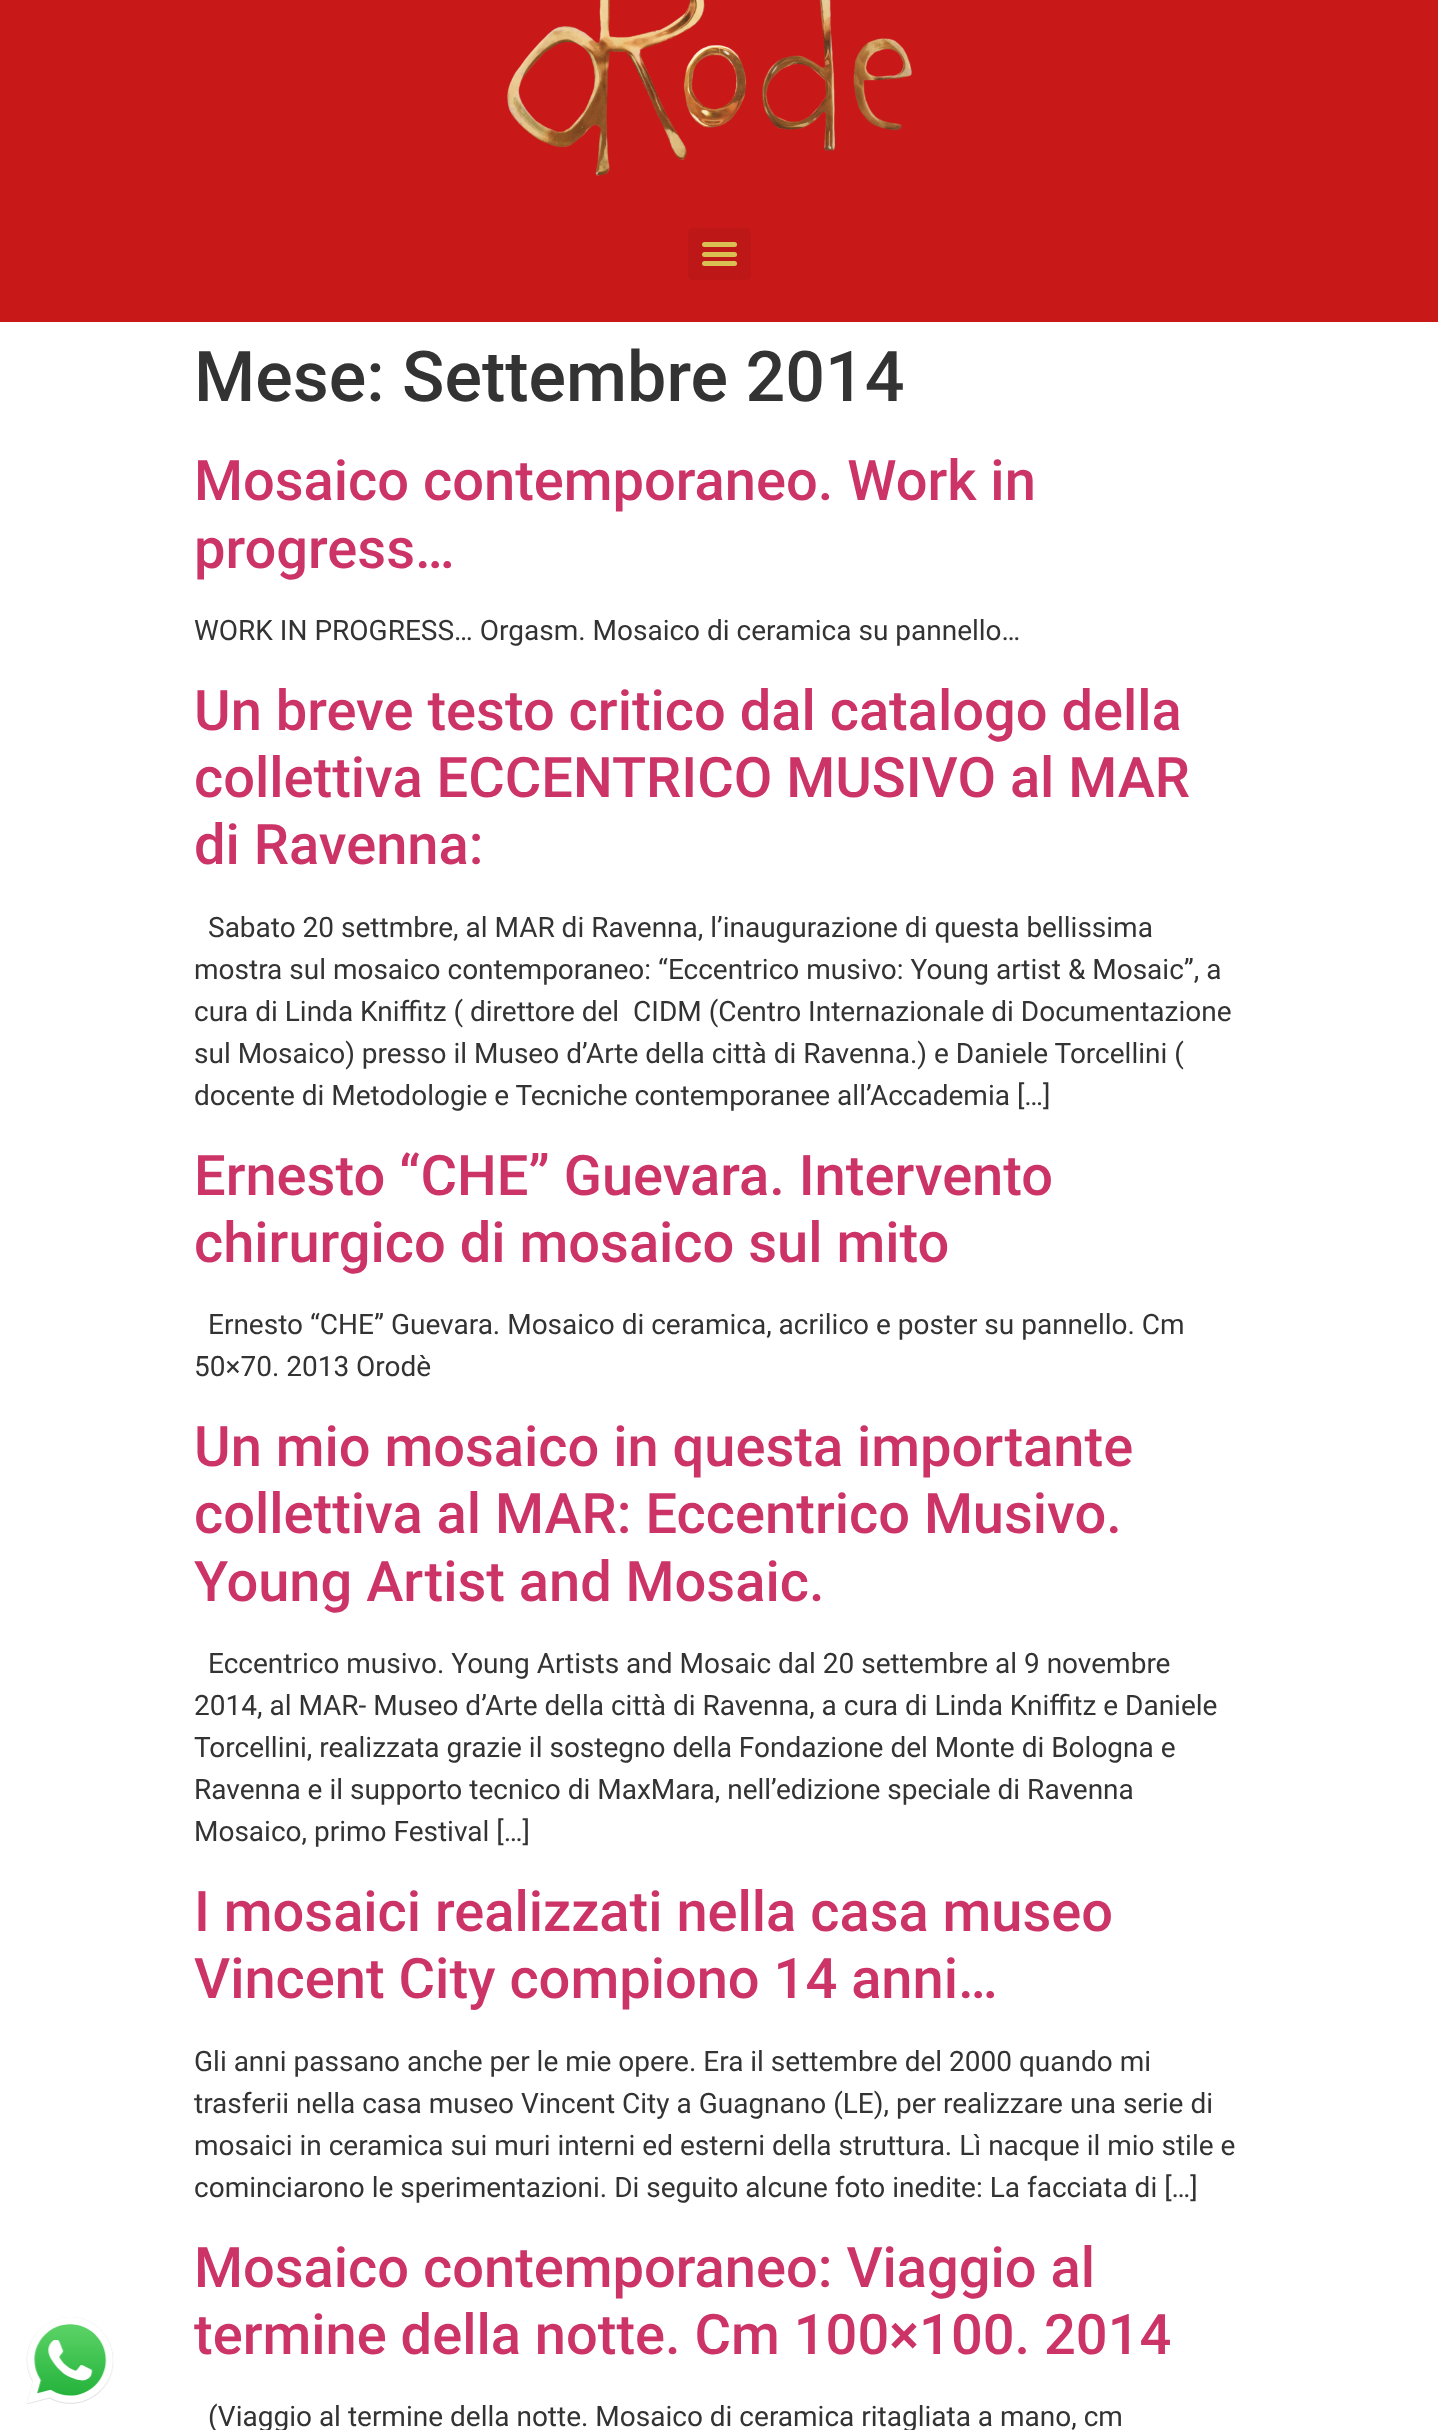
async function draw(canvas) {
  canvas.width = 1438;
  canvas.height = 2430;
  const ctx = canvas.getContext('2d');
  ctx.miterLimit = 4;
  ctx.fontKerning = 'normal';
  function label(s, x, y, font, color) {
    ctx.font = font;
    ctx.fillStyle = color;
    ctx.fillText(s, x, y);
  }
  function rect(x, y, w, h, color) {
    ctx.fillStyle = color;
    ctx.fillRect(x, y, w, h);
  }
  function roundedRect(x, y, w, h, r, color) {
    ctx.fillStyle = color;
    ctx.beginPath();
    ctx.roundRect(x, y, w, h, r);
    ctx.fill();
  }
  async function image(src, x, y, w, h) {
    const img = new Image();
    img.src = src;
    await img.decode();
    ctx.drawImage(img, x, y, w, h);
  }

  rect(0, 0, 1438, 2430, '#fff');
  rect(0, 0, 1438, 322, '#c81818');
  await image('assets/img1.png', 507, 0, 405, 176);
  roundedRect(688, 228, 63, 52, 5, '#be1717');
  roundedRect(702, 252, 35, 5, 2.5, '#dac053');
  roundedRect(702, 242, 35, 5, 2.5, '#dac053');
  roundedRect(702, 261, 35, 5, 2.5, '#dac053');
  await image('assets/img2.png', 26, 2317, 88, 87);
  label('Mese: Settembre 2014', 194, 401, '500 70px Roboto', '#333');
  label('Mosaico contemporaneo. Work in', 194, 500, '500 56px Roboto', '#c36');
  label('progress…', 194, 568, '500 56px Roboto', '#c36');
  label('WORK IN PROGRESS… Orgasm. Mosaico di ceramica su pannello…', 194, 640, '28px Roboto', '#333');
  label('Un breve testo critico dal catalogo della', 194, 730, '500 56px Roboto', '#c36');
  label('collettiva ECCENTRICO MUSIVO al MAR', 194, 797, '500 56px Roboto', '#c36');
  label('di Ravenna:', 194, 864, '500 56px Roboto', '#c36');
  label('Sabato 20 settmbre, al MAR di Ravenna, l’inaugurazione di questa bellissima', 208, 937, '28px Roboto', '#333');
  label('mostra sul mosaico contemporaneo: “Eccentrico musivo: Young artist & Mosaic”, a', 194, 979, '28px Roboto', '#333');
  label('cura di Linda Kniffitz ( direttore del  CIDM (Centro Internazionale di Documentazione', 194, 1021, '28px Roboto', '#333');
  label('sul Mosaico) presso il Museo d’Arte della città di Ravenna.) e Daniele Torcellini (', 194, 1063, '28px Roboto', '#333');
  label('docente di Metodologie e Tecniche contemporanee all’Accademia […]', 194, 1105, '28px Roboto', '#333');
  label('Ernesto “CHE” Guevara. Intervento', 194, 1195, '500 56px Roboto', '#c36');
  label('chirurgico di mosaico sul mito', 194, 1262, '500 56px Roboto', '#c36');
  label('Ernesto “CHE” Guevara. Mosaico di ceramica, acrilico e poster su pannello. Cm', 208, 1334, '28px Roboto', '#333');
  label('50×70. 2013 Orodè', 194, 1376, '28px Roboto', '#333');
  label('Un mio mosaico in questa importante', 194, 1466, '500 56px Roboto', '#c36');
  label('collettiva al MAR: Eccentrico Musivo.', 194, 1533, '500 56px Roboto', '#c36');
  label('Young Artist and Mosaic.', 194, 1601, '500 56px Roboto', '#c36');
  label('Eccentrico musivo. Young Artists and Mosaic dal 20 settembre al 9 novembre', 208, 1673, '28px Roboto', '#333');
  label('2014, al MAR- Museo d’Arte della città di Ravenna, a cura di Linda Kniffitz e Daniele', 194, 1715, '28px Roboto', '#333');
  label('Torcellini, realizzata grazie il sostegno della Fondazione del Monte di Bologna e', 194, 1757, '28px Roboto', '#333');
  label('Ravenna e il supporto tecnico di MaxMara, nell’edizione speciale di Ravenna', 194, 1799, '28px Roboto', '#333');
  label('Mosaico, primo Festival […]', 194, 1841, '28px Roboto', '#333');
  label('I mosaici realizzati nella casa museo', 194, 1931, '500 56px Roboto', '#c36');
  label('Vincent City compiono 14 anni…', 194, 1998, '500 56px Roboto', '#c36');
  label('Gli anni passano anche per le mie opere. Era il settembre del 2000 quando mi', 194, 2071, '28px Roboto', '#333');
  label('trasferii nella casa museo Vincent City a Guagnano (LE), per realizzare una serie di', 194, 2113, '28px Roboto', '#333');
  label('mosaici in ceramica sui muri interni ed esterni della struttura. Lì nacque il mio stile e', 194, 2155, '28px Roboto', '#333');
  label('cominciarono le sperimentazioni. Di seguito alcune foto inedite: La facciata di […]', 194, 2197, '28px Roboto', '#333');
  label('Mosaico contemporaneo: Viaggio al', 194, 2287, '500 56px Roboto', '#c36');
  label('termine della notte. Cm 100×100. 2014', 194, 2354, '500 56px Roboto', '#c36');
  label('(Viaggio al termine della notte. Mosaico di ceramica ritagliata a mano, cm', 208, 2426, '28px Roboto', '#333');
}

draw(document.querySelector('canvas'));
